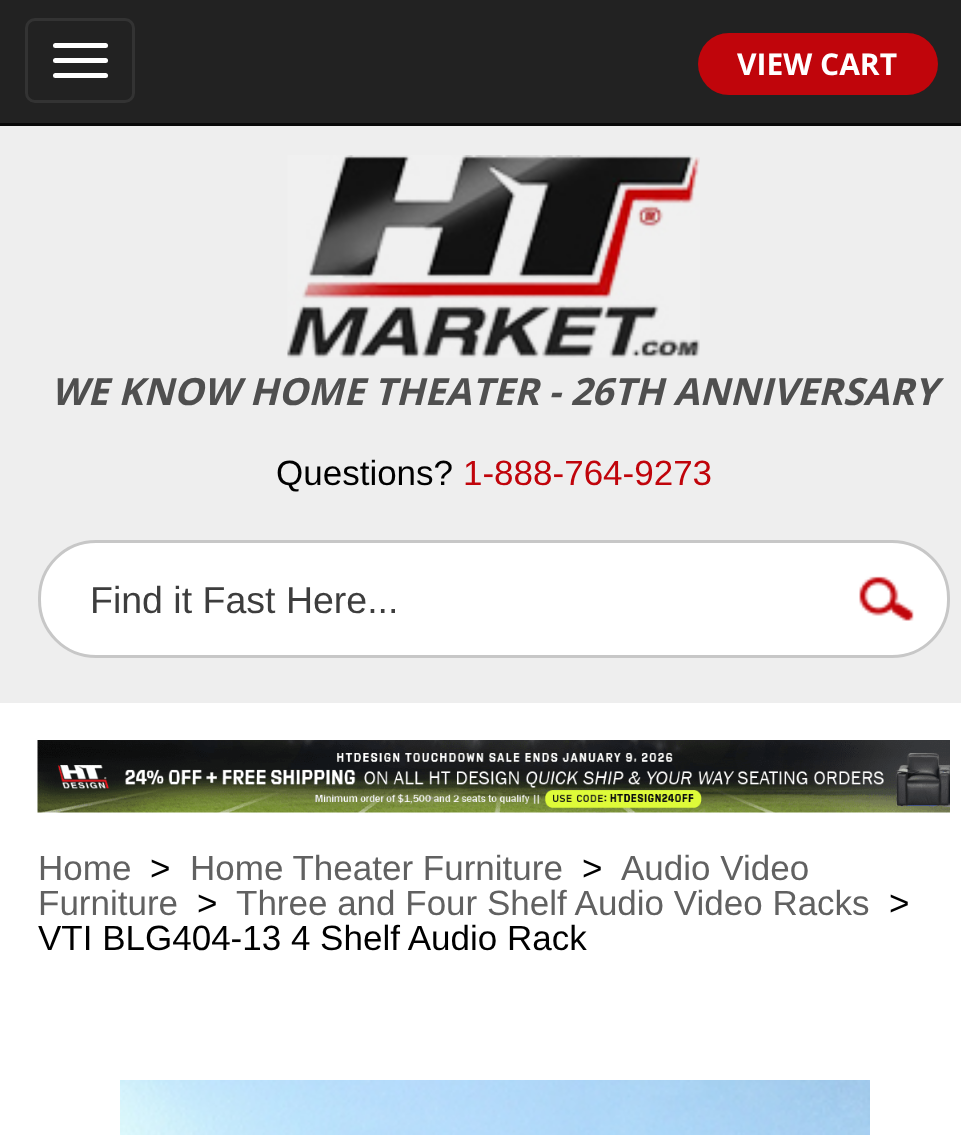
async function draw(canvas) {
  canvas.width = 961;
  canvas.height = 1135;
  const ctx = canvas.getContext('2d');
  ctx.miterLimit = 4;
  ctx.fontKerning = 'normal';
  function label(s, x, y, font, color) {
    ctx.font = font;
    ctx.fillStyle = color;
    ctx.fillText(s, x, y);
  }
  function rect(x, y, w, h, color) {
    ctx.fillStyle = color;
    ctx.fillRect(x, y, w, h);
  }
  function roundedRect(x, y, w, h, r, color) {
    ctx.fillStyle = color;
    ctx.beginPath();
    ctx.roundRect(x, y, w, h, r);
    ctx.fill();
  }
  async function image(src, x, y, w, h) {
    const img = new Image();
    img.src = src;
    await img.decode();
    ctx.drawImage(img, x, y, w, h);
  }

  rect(0, 0, 961, 1135, '#fff');
  rect(0, 0, 961, 123, '#222');
  rect(0, 123, 961, 3, '#080808');
  ctx.beginPath();
  ctx.roundRect(26.5, 19.5, 107, 82, 8.5);
  ctx.strokeStyle = '#333';
  ctx.lineWidth = 3;
  ctx.stroke();
  roundedRect(53, 43, 55, 5, 2.5, '#fff');
  roundedRect(53, 58, 55, 5, 2.5, '#fff');
  roundedRect(53, 73, 55, 5, 2.5, '#fff');
  roundedRect(698, 33, 240, 62, 31, '#c0050b');
  label('VIEW CART', 737, 75, 'bold 30px Open Sans', '#fff');
  rect(0, 126, 961, 577, '#eee');
  await image('assets/img1.png', 287, 155, 413, 203);
  label('WE KNOW HOME THEATER - 26TH ANNIVERSARY', 51, 405, 'italic bold 37.5px Open Sans', '#4f4f4f');
  label('Questions?', 276, 485, '35px Liberation Sans', '#000');
  label('1-888-764-9273', 463, 485, '35px Liberation Sans', '#c0040b');
  ctx.fillStyle = '#fff';
  ctx.beginPath();
  ctx.roundRect(39.5, 541.5, 909, 115, 56.5);
  ctx.fill();
  ctx.strokeStyle = '#c7c7c7';
  ctx.stroke();
  label('Find it Fast Here...', 90, 613, '37.5px Liberation Sans', '#3d3d3d');
  await image('assets/img2.png', 859, 576, 55, 45);
  await image('assets/img3.png', 37, 740, 913, 73);
  label('Home', 38, 880, '35px Liberation Sans', '#616161');
  label('>', 150, 880, '35px Liberation Sans', '#000');
  label('Home Theater Furniture', 190, 880, '35px Liberation Sans', '#616161');
  label('>', 582, 880, '35px Liberation Sans', '#000');
  label('Audio Video', 621, 880, '35px Liberation Sans', '#616161');
  label('Furniture', 38, 915, '35px Liberation Sans', '#616161');
  label('>', 197, 915, '35px Liberation Sans', '#000');
  label('Three and Four Shelf Audio Video Racks', 236, 915, '35px Liberation Sans', '#616161');
  label('>', 889, 915, '35px Liberation Sans', '#000');
  label('VTI BLG404-13 4 Shelf Audio Rack', 38, 950, '35px Liberation Sans', '#000');
  await image('assets/img4.png', 120, 1080, 750, 55);
}

draw(document.querySelector('canvas'));
